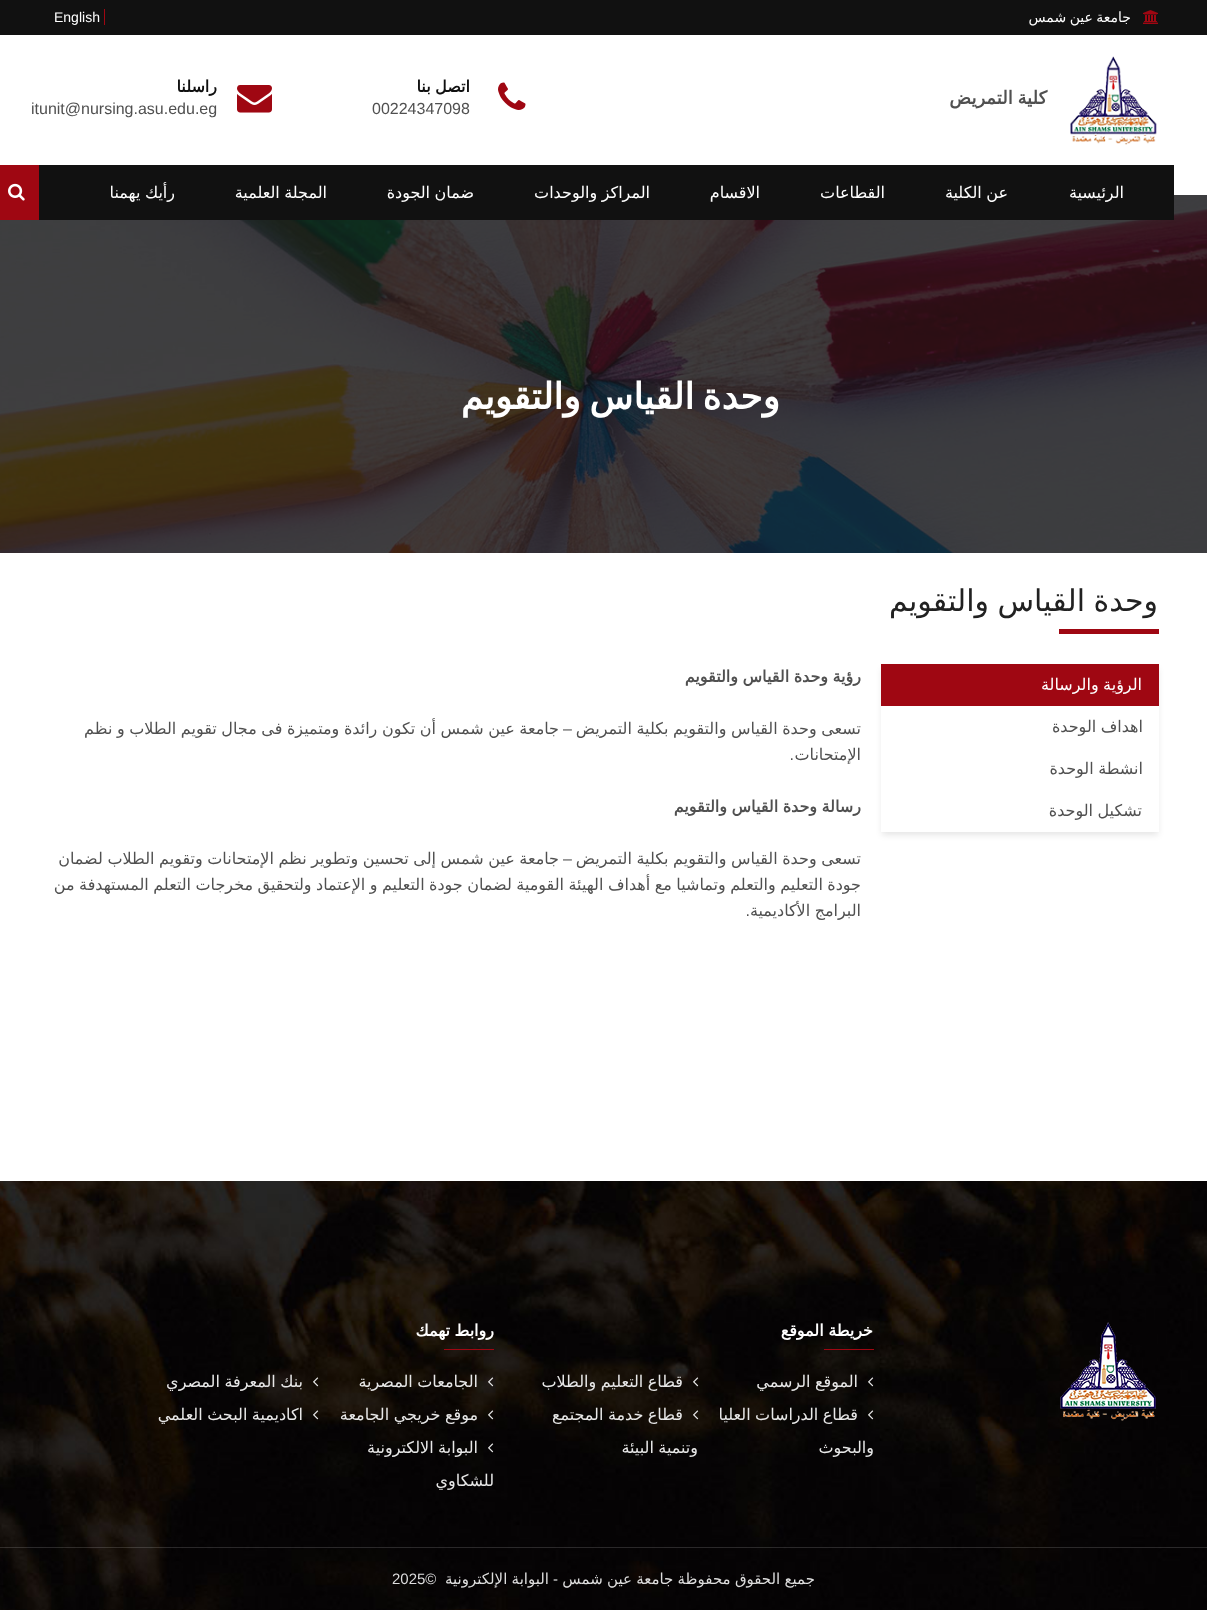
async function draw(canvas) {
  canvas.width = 1207;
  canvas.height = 1621;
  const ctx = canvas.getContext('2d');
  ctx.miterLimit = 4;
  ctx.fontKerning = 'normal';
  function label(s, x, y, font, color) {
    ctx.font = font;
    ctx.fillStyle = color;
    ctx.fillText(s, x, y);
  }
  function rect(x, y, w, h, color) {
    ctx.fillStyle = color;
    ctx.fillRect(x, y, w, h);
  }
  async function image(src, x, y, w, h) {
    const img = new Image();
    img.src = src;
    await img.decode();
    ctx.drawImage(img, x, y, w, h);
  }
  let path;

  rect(0, 0, 1207, 1621, '#fff');
  rect(0, 0, 1207, 35, '#111');
  await image('assets/img1.png', 1143, 10, 15, 14);
  ctx.wordSpacing = '-1px';
  ctx.direction = 'rtl';
  label('جامعة عين شمس', 1131, 22, '14px DejaVu Sans', '#fff');
  ctx.wordSpacing = '0px';
  ctx.direction = 'ltr';
  label('English', 54, 22, '14px Liberation Sans', '#fff');
  rect(104, 9, 1, 16, '#9f0712');
  await image('assets/img2.png', 1070, 56, 87, 89);
  ctx.wordSpacing = '-1px';
  ctx.direction = 'rtl';
  label('كلية التمريض', 1047, 104, 'bold 18px DejaVu Sans', '#505050');
  await image('assets/img3.png', 498, 82, 28, 28);
  ctx.wordSpacing = '-0.6px';
  label('اتصل بنا', 470, 92, 'bold 16px DejaVu Sans', '#101010');
  ctx.wordSpacing = '0px';
  ctx.direction = 'ltr';
  label('00224347098', 372, 114, '16px Liberation Sans', '#505050');
  await image('assets/img4.png', 237, 85, 35, 28);
  ctx.direction = 'rtl';
  label('راسلنا', 217, 92, 'bold 16px DejaVu Sans', '#101010');
  ctx.direction = 'ltr';
  label('itunit@nursing.asu.edu.eg', 31, 114, '16px Liberation Sans', '#505050');
  await image('assets/img6.png', 0, 195, 1207, 358);
  rect(39, 165, 1135, 55, '#111');
  ctx.direction = 'rtl';
  label('الرئيسية', 1124, 198, '16px DejaVu Sans', '#fff');
  ctx.wordSpacing = '-0.6px';
  label('عن الكلية', 1008, 198, '16px DejaVu Sans', '#fff');
  ctx.wordSpacing = '0px';
  label('القطاعات', 885, 198, '16px DejaVu Sans', '#fff');
  label('الاقسام', 760, 198, '16px DejaVu Sans', '#fff');
  ctx.wordSpacing = '-0.6px';
  label('المراكز والوحدات', 650, 198, '16px DejaVu Sans', '#fff');
  label('ضمان الجودة', 474, 198, '16px DejaVu Sans', '#fff');
  label('المجلة العلمية', 327, 198, '16px DejaVu Sans', '#fff');
  label('رأيك يهمنا', 175, 198, '16px DejaVu Sans', '#fff');
  rect(0, 165, 39, 55, '#9f0712');
  await image('assets/img5.png', 8, 183, 17, 18);
  ctx.letterSpacing = '1px';
  ctx.wordSpacing = '-4px';
  label('وحدة القياس والتقويم', 780, 409, 'bold 36px DejaVu Sans', '#fff');
  ctx.letterSpacing = '0px';
  ctx.wordSpacing = '-1px';
  label('وحدة القياس والتقويم', 1158, 611, '30px DejaVu Sans', '#212121');
  rect(1059, 629, 100, 5, '#9f0712');
  ctx.save();
  path = new Path2D('M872 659H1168V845H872ZM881 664H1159V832H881Z');
  ctx.clip(path, 'evenodd');
  ctx.fillStyle = '#0000001a';
  ctx.filter = 'blur(3px)';
  ctx.beginPath();
  ctx.rect(882, 669, 276, 166);
  ctx.fill();
  ctx.filter = 'none';
  ctx.restore();
  rect(881, 664, 278, 42, '#9f0712');
  ctx.wordSpacing = '-0.6px';
  label('الرؤية والرسالة', 1142, 690, '16px DejaVu Sans', '#fff');
  label('اهداف الوحدة', 1143, 732, '16px DejaVu Sans', '#505050');
  label('انشطة الوحدة', 1143, 774, '16px DejaVu Sans', '#505050');
  label('تشكيل الوحدة', 1142, 816, '16px DejaVu Sans', '#505050');
  label('رؤية وحدة القياس والتقويم', 861, 682, 'bold 16px DejaVu Sans', '#505050');
  ctx.wordSpacing = '-0.5px';
  label('تسعى وحدة القياس والتقويم بكلية التمريض', 861, 734, '16px DejaVu Sans', '#505050');
  label('جامعة عين شمس أن تكون رائدة ومتميزة فى مجال تقويم الطلاب و نظم', 559, 734, '16px DejaVu Sans', '#505050');
  ctx.wordSpacing = '0px';
  label('–', 572, 734, '16px Liberation Sans', '#505050');
  label('الإمتحانات', 861, 760, '16px DejaVu Sans', '#505050');
  label('.', 794, 760, '16px Liberation Sans', '#505050');
  ctx.wordSpacing = '-0.6px';
  label('رسالة وحدة القياس والتقويم', 861, 812, 'bold 16px DejaVu Sans', '#505050');
  ctx.wordSpacing = '-0.5px';
  label('تسعى وحدة القياس والتقويم بكلية التمريض', 861, 864, '16px DejaVu Sans', '#505050');
  label('جامعة عين شمس إلى تحسين وتطوير نظم الإمتحانات وتقويم الطلاب لضمان', 559, 864, '16px DejaVu Sans', '#505050');
  ctx.wordSpacing = '0px';
  label('–', 572, 864, '16px Liberation Sans', '#505050');
  ctx.wordSpacing = '-0.6px';
  label('جودة التعليم والتعلم وتماشيا مع أهداف الهيئة القومية لضمان جودة التعليم و الإعتماد ولتحقيق مخرجات التعلم المستهدفة من', 861, 890, '16px DejaVu Sans', '#505050');
  label('البرامج الأكاديمية', 861, 916, '16px DejaVu Sans', '#505050');
  ctx.wordSpacing = '0px';
  label('.', 750, 916, '16px Liberation Sans', '#505050');
  await image('assets/img7.png', 0, 1181, 1207, 429);
  await image('assets/img8.png', 1060, 1322, 96, 99);
  ctx.wordSpacing = '-0.6px';
  label('خريطة الموقع', 873, 1336, 'bold 16px DejaVu Sans', '#fff');
  rect(824, 1349, 50, 1, '#9f0712');
  await image('assets/img9.png', 868, 1377, 6, 10);
  label('الموقع الرسمي', 858, 1387, '16px DejaVu Sans', '#e8e8e8');
  await image('assets/img10.png', 693, 1377, 6, 10);
  label('قطاع التعليم والطلاب', 683, 1387, '16px DejaVu Sans', '#e8e8e8');
  await image('assets/img11.png', 868, 1410, 6, 10);
  label('قطاع الدراسات العليا', 858, 1420, '16px DejaVu Sans', '#e8e8e8');
  ctx.wordSpacing = '0px';
  label('والبحوث', 874, 1453, '16px DejaVu Sans', '#e8e8e8');
  await image('assets/img12.png', 693, 1410, 6, 10);
  ctx.wordSpacing = '-0.6px';
  label('قطاع خدمة المجتمع', 683, 1420, '16px DejaVu Sans', '#e8e8e8');
  label('وتنمية البيئة', 698, 1453, '16px DejaVu Sans', '#e8e8e8');
  label('روابط تهمك', 494, 1336, 'bold 16px DejaVu Sans', '#fff');
  rect(444, 1349, 50, 1, '#9f0712');
  await image('assets/img13.png', 488, 1377, 6, 10);
  label('الجامعات المصرية', 478, 1387, '16px DejaVu Sans', '#e8e8e8');
  await image('assets/img14.png', 313, 1377, 6, 10);
  label('بنك المعرفة المصري', 303, 1387, '16px DejaVu Sans', '#e8e8e8');
  await image('assets/img15.png', 488, 1410, 6, 10);
  label('موقع خريجي الجامعة', 478, 1420, '16px DejaVu Sans', '#e8e8e8');
  await image('assets/img16.png', 313, 1410, 6, 10);
  label('اكاديمية البحث العلمي', 303, 1420, '16px DejaVu Sans', '#e8e8e8');
  await image('assets/img17.png', 488, 1443, 6, 10);
  label('البوابة الالكترونية', 478, 1453, '16px DejaVu Sans', '#e8e8e8');
  ctx.wordSpacing = '0px';
  label('للشكاوي', 494, 1486, '16px DejaVu Sans', '#e8e8e8');
  rect(0, 1547, 1207, 1, '#ffffff26');
  ctx.wordSpacing = '-0.5px';
  label('جميع الحقوق محفوظة جامعة عين شمس', 815, 1584, '15px DejaVu Sans', '#ddd');
  ctx.wordSpacing = '0px';
  label('-', 558, 1584, '15px Liberation Sans', '#ddd');
  ctx.wordSpacing = '-0.5px';
  label('البوابة الإلكترونية', 549, 1584, '15px DejaVu Sans', '#ddd');
  ctx.wordSpacing = '0px';
  ctx.direction = 'ltr';
  label('2025©', 392, 1584, '15px Liberation Sans', '#ddd');
}

draw(document.querySelector('canvas'));
